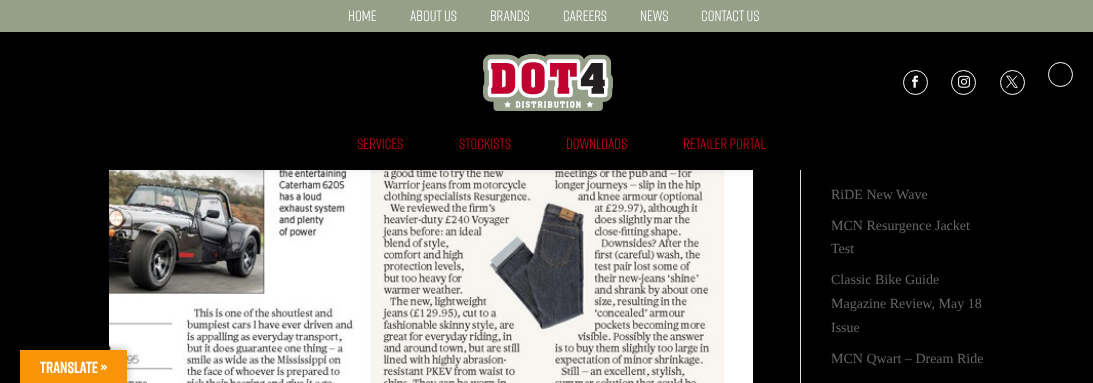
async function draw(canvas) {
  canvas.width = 1093;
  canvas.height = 383;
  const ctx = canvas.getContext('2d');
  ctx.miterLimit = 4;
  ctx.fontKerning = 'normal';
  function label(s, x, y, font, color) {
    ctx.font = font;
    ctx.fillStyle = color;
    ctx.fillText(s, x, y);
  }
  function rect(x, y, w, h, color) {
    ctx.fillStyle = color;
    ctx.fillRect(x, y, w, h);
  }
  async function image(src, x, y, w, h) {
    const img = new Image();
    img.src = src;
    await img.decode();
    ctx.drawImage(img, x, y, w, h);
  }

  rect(0, 0, 1093, 383, '#000');
  rect(800, 170, 1, 213, '#e2e2e2');
  await image('assets/img5.png', 109, 170, 644, 213);
  ctx.fillStyle = '#0000001a';
  ctx.filter = 'blur(3.5px)';
  ctx.beginPath();
  ctx.rect(0, 32, 1093, 138);
  ctx.fill();
  ctx.filter = 'none';
  rect(0, 0, 1093, 32, '#969f88');
  label('HOME', 348, 21, '15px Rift', '#fff');
  label('ABOUT US', 410, 21, '15px Rift', '#fff');
  label('BRANDS', 490, 21, '15px Rift', '#fff');
  label('CAREERS', 563, 21, '15px Rift', '#fff');
  label('NEWS', 640, 21, '15px Rift', '#fff');
  label('CONTACT US', 701, 21, '15px Rift', '#fff');
  ctx.beginPath();
  ctx.arc(915.5, 82.5, 12, 0, 2 * Math.PI);
  ctx.strokeStyle = '#fff';
  ctx.stroke();
  await image('assets/img1.png', 912, 75, 6, 13);
  ctx.beginPath();
  ctx.arc(963.5, 82.5, 12, 0, 2 * Math.PI);
  ctx.stroke();
  await image('assets/img2.png', 958, 75, 12, 13);
  ctx.beginPath();
  ctx.arc(1012.5, 82.5, 12, 0, 2 * Math.PI);
  ctx.stroke();
  await image('assets/img3.png', 1006, 75, 12, 13);
  ctx.beginPath();
  ctx.arc(1060.5, 74.5, 12, 0, 2 * Math.PI);
  ctx.stroke();
  await image('assets/img4.png', 483, 54, 130, 57);
  label('SERVICES', 357, 149, '15px Rift', '#d7000f');
  label('STOCKISTS', 459, 149, '15px Rift', '#d7000f');
  label('DOWNLOADS', 566, 149, '15px Rift', '#d7000f');
  label('RETAILER PORTAL', 683, 149, '15px Rift', '#d7000f');
  label('RiDE New Wave', 831, 199, '14px Liberation Serif', '#666');
  label('MCN Resurgence Jacket', 831, 230, '14px Liberation Serif', '#666');
  label('Test', 831, 253, '14px Liberation Serif', '#666');
  label('Classic Bike Guide', 831, 284, '14px Liberation Serif', '#666');
  label('Magazine Review, May 18', 831, 308, '14px Liberation Serif', '#666');
  label('Issue', 831, 332, '14px Liberation Serif', '#666');
  label('MCN Qwart – Dream Ride', 831, 363, '14px Liberation Serif', '#666');
  ctx.fillStyle = '#0000004d';
  ctx.filter = 'blur(4.5px)';
  ctx.beginPath();
  ctx.rect(20, 350, 107, 33);
  ctx.fill();
  ctx.filter = 'none';
  rect(20, 350, 107, 33, '#f89406');
  label('Translate »', 40, 373, 'bold 16px Rift', '#fff');
}

draw(document.querySelector('canvas'));
